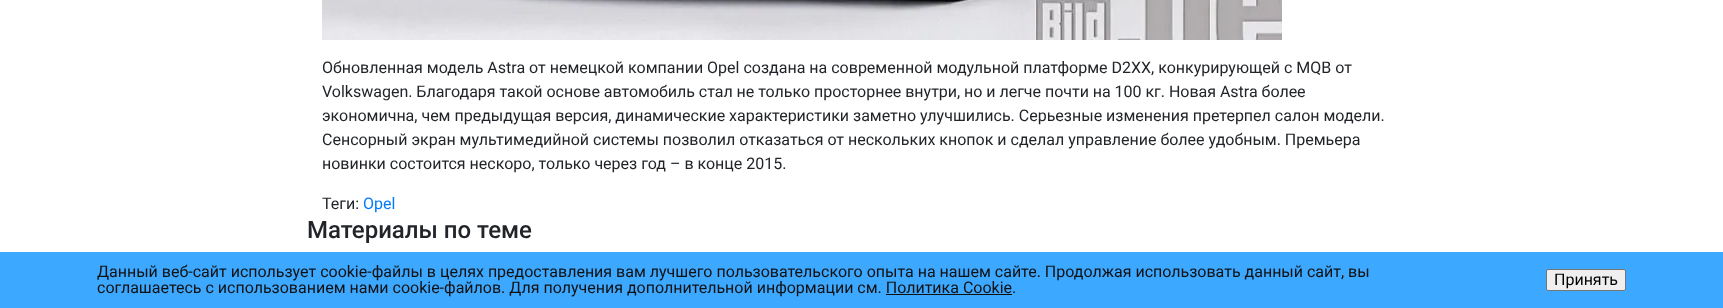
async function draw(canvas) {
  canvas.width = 1723;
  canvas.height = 308;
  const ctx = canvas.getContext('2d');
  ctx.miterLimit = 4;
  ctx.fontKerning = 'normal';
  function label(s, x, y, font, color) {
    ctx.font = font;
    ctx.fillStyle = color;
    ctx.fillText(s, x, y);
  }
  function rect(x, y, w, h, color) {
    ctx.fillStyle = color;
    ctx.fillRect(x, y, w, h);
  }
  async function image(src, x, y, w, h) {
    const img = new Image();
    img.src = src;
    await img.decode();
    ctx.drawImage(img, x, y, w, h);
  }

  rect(0, 0, 1723, 308, '#fff');
  await image('assets/img1.png', 322, 0, 960, 40);
  label('Обновленная модель Astra от немецкой компании Opel создана на современной модульной платформе D2XX, конкурирующей с MQB от', 322, 73, '16px Roboto', '#212529');
  ctx.wordSpacing = '-0.1px';
  label('Volkswagen. Благодаря такой основе автомобиль стал не только просторнее внутри, но и легче почти на 100 кг. Новая Astra более', 322, 97, '16px Roboto', '#212529');
  ctx.wordSpacing = '0px';
  label('экономична, чем предыдущая версия, динамические характеристики заметно улучшились. Серьезные изменения претерпел салон модели.', 322, 121, '16px Roboto', '#212529');
  label('Сенсорный экран мультимедийной системы позволил отказаться от нескольких кнопок и сделал управление более удобным. Премьера', 322, 145, '16px Roboto', '#212529');
  label('новинки состоится нескоро, только через год – в конце 2015.', 322, 169, '16px Roboto', '#212529');
  label('Теги:', 322, 209, '16px Roboto', '#212529');
  label('Opel', 363, 209, '16px Roboto', '#007bff');
  label('Материалы по теме', 307, 238, '500 24px Roboto', '#212529');
  rect(0, 252, 1723, 56, '#3da8ff');
  label('Данный веб-сайт использует cookie-файлы в целях предоставления вам лучшего пользовательского опыта на нашем сайте. Продолжая использовать данный сайт, вы', 97, 277, '16px Roboto', '#111');
  label('соглашаетесь с использованием нами cookie-файлов. Для получения дополнительной информации см. Политика Cookie.', 97, 293, '16px Roboto', '#111');
  rect(886, 294, 126, 1, '#111');
  ctx.fillStyle = '#efefef';
  ctx.beginPath();
  ctx.roundRect(1546.5, 269.5, 79, 21, 1.5);
  ctx.fill();
  ctx.strokeStyle = '#767676';
  ctx.stroke();
  label('Принять', 1554, 285, '16px Roboto', '#000');
}

draw(document.querySelector('canvas'));
